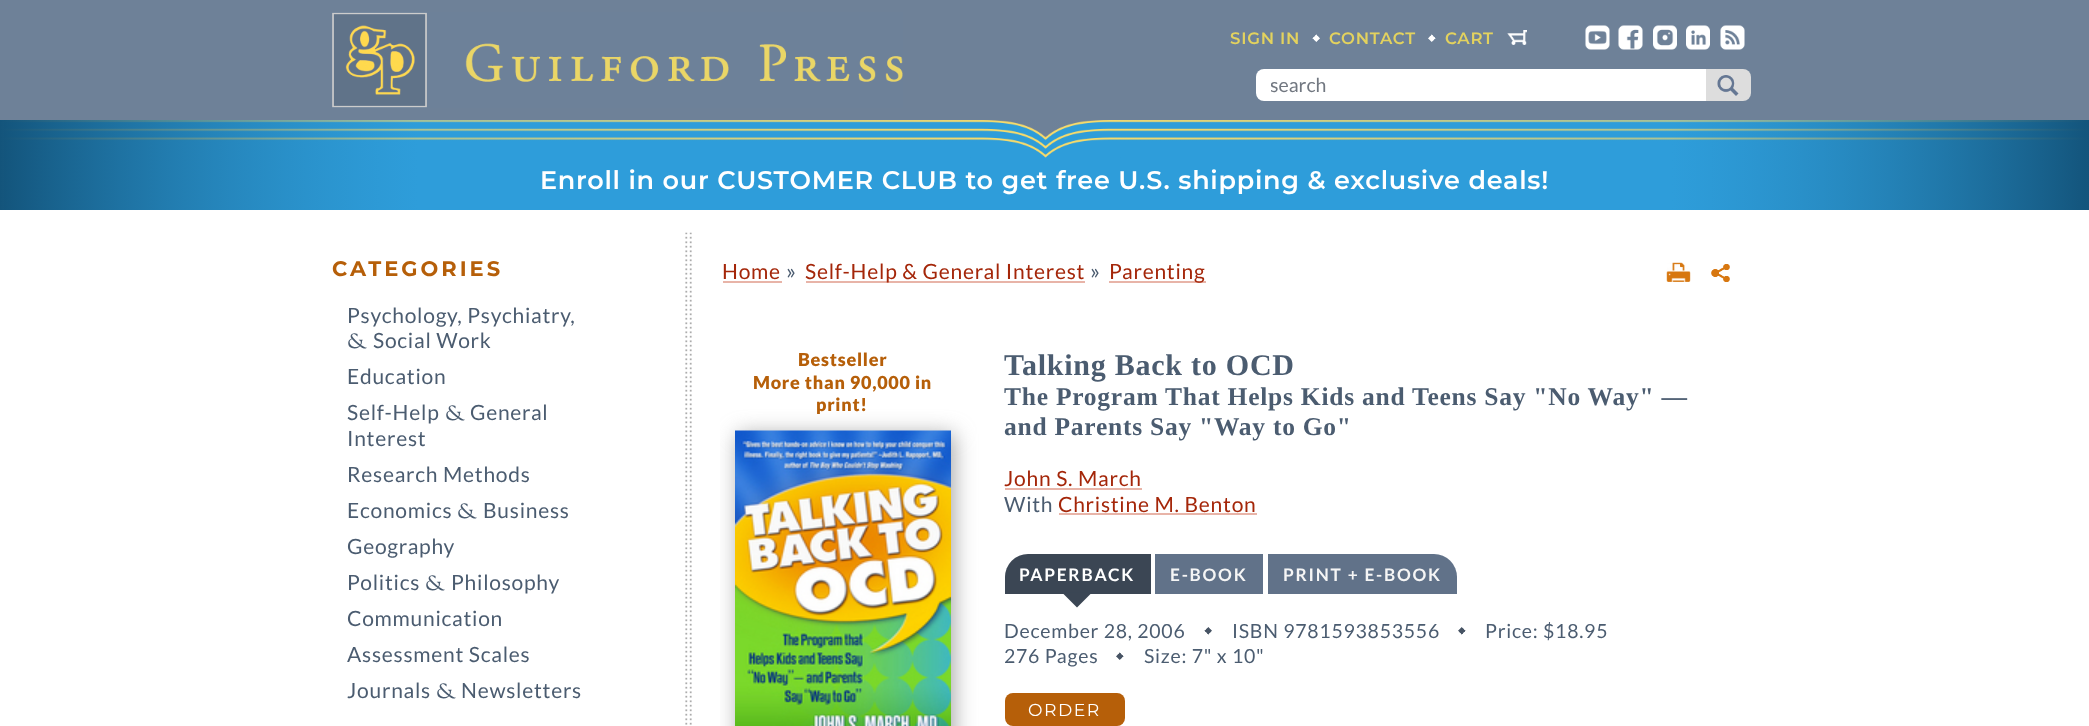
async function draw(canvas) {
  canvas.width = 2089;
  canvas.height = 726;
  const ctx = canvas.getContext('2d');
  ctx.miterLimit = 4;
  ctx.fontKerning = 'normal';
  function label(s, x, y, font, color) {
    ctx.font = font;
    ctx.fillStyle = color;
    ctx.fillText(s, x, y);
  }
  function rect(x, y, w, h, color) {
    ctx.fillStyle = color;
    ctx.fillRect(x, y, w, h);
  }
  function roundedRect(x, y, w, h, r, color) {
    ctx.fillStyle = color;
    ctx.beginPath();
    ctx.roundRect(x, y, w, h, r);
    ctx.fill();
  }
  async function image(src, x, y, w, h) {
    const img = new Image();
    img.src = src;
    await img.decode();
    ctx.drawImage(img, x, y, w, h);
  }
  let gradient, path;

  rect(0, 0, 2089, 726, '#fff');
  rect(0, 0, 2089, 120, '#6e8198');
  await image('assets/img1.png', 332, 12, 571, 96);
  ctx.letterSpacing = '0.75px';
  label('SIGN IN', 1230, 44, '600 16.5px Montserrat', '#e3d25e');
  await image('assets/img2.png', 1312, 34, 8, 8);
  label('CONTACT', 1329, 44, '600 16.5px Montserrat', '#e3d25e');
  await image('assets/img3.png', 1428, 34, 8, 8);
  label('CART', 1445, 44, '600 16.5px Montserrat', '#e3d25e');
  await image('assets/img4.png', 1507, 30, 20, 15);
  await image('assets/img5.png', 1585, 25, 25, 25);
  await image('assets/img6.png', 1618, 25, 25, 25);
  await image('assets/img7.png', 1653, 25, 24, 25);
  await image('assets/img8.png', 1686, 25, 24, 25);
  await image('assets/img9.png', 1720, 25, 25, 25);
  ctx.fillStyle = '#fff';
  ctx.beginPath();
  ctx.roundRect(1256, 69, 450, 32, [8, 0, 0, 8]);
  ctx.fill();
  ctx.save();
  ctx.beginPath();
  ctx.rect(1271, 74, 420, 24);
  ctx.clip();
  ctx.letterSpacing = '0px';
  label('search', 1270, 92, '19.5px Lato', '#717780');
  ctx.restore();
  ctx.fillStyle = '#ddd';
  ctx.beginPath();
  ctx.roundRect(1706, 69, 45, 32, [0, 8, 8, 0]);
  ctx.fill();
  await image('assets/img10.png', 1717, 75, 22, 21);
  rect(4, 120, 2082, 90, '#2e9dda');
  await image('assets/img11.png', 4, 120, 2082, 38);
  gradient = ctx.createLinearGradient(0, 165, 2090, 165);
  gradient.addColorStop(0, '#13547b');
  gradient.addColorStop(0.2, '#2e9dda66');
  gradient.addColorStop(0.5, '#2e9dda00');
  gradient.addColorStop(0.8, '#2e9dda66');
  gradient.addColorStop(1, '#13547b');
  ctx.fillStyle = gradient;
  ctx.fillRect(0, 120, 2089, 90);
  label('Enroll in our CUSTOMER CLUB to get free U.S. shipping & exclusive deals!', 540, 189, '600 25.5px Montserrat', '#fff');
  await image('assets/img12.png', 685, 232, 7, 493);
  ctx.letterSpacing = '3px';
  label('CATEGORIES', 332, 276, 'bold 21px Montserrat', '#b65f09');
  ctx.letterSpacing = '0.75px';
  label('Psychology, Psychiatry,', 347, 323, '21px Lato', '#4b5c70');
  label('&', 347, 348, '21px Sorts Mill Goudy', '#4b5c70');
  label('Social Work', 373, 348, '21px Lato', '#4b5c70');
  label('Education', 347, 384, '21px Lato', '#4b5c70');
  label('Self-Help', 347, 420, '21px Lato', '#4b5c70');
  label('&', 445, 420, '21px Sorts Mill Goudy', '#4b5c70');
  label('General', 470, 420, '21px Lato', '#4b5c70');
  label('Interest', 347, 446, '21px Lato', '#4b5c70');
  label('Research Methods', 347, 482, '21px Lato', '#4b5c70');
  label('Economics', 347, 518, '21px Lato', '#4b5c70');
  label('&', 457, 518, '21px Sorts Mill Goudy', '#4b5c70');
  label('Business', 483, 518, '21px Lato', '#4b5c70');
  label('Geography', 347, 554, '21px Lato', '#4b5c70');
  label('Politics', 347, 590, '21px Lato', '#4b5c70');
  label('&', 425, 590, '21px Sorts Mill Goudy', '#4b5c70');
  label('Philosophy', 451, 590, '21px Lato', '#4b5c70');
  label('Communication', 347, 626, '21px Lato', '#4b5c70');
  label('Assessment Scales', 347, 662, '21px Lato', '#4b5c70');
  label('Journals', 347, 698, '21px Lato', '#4b5c70');
  label('&', 436, 698, '21px Sorts Mill Goudy', '#4b5c70');
  label('Newsletters', 461, 698, '21px Lato', '#4b5c70');
  label('Home', 722, 279, '21px Lato', '#a42609');
  rect(723, 281, 59, 2, '#e8b4a8');
  label('»', 786, 279, '22px Lato', '#4b5c70');
  rect(806, 281, 279, 2, '#e8b4a8');
  label('Self-Help & General Interest', 805, 279, '21px Lato', '#a42609');
  label('»', 1090, 279, '22px Lato', '#4b5c70');
  rect(1109, 281, 97, 2, '#e8b4a8');
  label('Parenting', 1109, 279, '21px Lato', '#a42609');
  await image('assets/img13.png', 1666, 262, 25, 20);
  await image('assets/img14.png', 1711, 264, 19, 18);
  await image('assets/img15.png', 1711, 264, 19, 18);
  label('Bestseller', 798, 366, '900 18px Lato', '#b65f09');
  label('More than 90,000 in', 753, 389, '900 18px Lato', '#b65f09');
  label('print!', 816, 411, '900 18px Lato', '#b65f09');
  ctx.save();
  ctx.beginPath();
  ctx.rect(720, 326, 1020, 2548);
  ctx.clip();
  ctx.fillStyle = '#808080b3';
  ctx.filter = 'blur(10.5px)';
  ctx.beginPath();
  ctx.rect(738, 434, 216, 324);
  ctx.fill();
  ctx.filter = 'none';
  ctx.restore();
  await image('assets/img16.png', 735, 430, 216, 296);
  label('Talking Back to OCD', 1004, 375, 'bold 30px Liberation Serif', '#4b5c70');
  label('The Program That Helps Kids and Teens Say "No Way" —', 1004, 405, 'bold 25.5px Liberation Serif', '#4b5c70');
  label('and Parents Say "Way to Go"', 1004, 435, 'bold 25.5px Liberation Serif', '#4b5c70');
  label('John S. March', 1004, 486, '21px Lato', '#a42609');
  rect(1005, 488, 137, 2, '#e8b4a8');
  label('With', 1004, 512, '21px Lato', '#4b5c70');
  label('Christine M. Benton', 1058, 512, '21px Lato', '#a42609');
  rect(1059, 513, 198, 2, '#e8b4a8');
  ctx.fillStyle = '#3b4654';
  ctx.beginPath();
  ctx.roundRect(1005, 554, 146, 40, [23, 0, 0, 0]);
  ctx.fill();
  ctx.letterSpacing = '1.75px';
  label('PAPERBACK', 1019, 581, 'bold 17.25px Lato', '#fff');
  ctx.fillStyle = '#3b4654';
  path = new Path2D('M1062 592.5H1092L1077 607.5Z');
  ctx.fill(path);
  rect(1155, 554, 108, 40, '#617289');
  label('E-BOOK', 1170, 581, 'bold 17.25px Lato', '#f5f5f5');
  ctx.fillStyle = '#617289';
  ctx.beginPath();
  ctx.roundRect(1268, 554, 189, 40, [0, 23, 0, 0]);
  ctx.fill();
  label('PRINT + E-BOOK', 1283, 581, 'bold 17.25px Lato', '#f5f5f5');
  await image('assets/img17.png', 1204, 627, 8, 8);
  ctx.letterSpacing = '0.75px';
  label('December 28, 2006', 1004, 638, '19.5px Lato', '#4b5c70');
  await image('assets/img18.png', 1458, 627, 8, 8);
  label('ISBN 9781593853556', 1232, 638, '19.5px Lato', '#4b5c70');
  label('Price: $18.95', 1485, 638, '19.5px Lato', '#4b5c70');
  await image('assets/img19.png', 1116, 652, 8, 8);
  label('276 Pages', 1004, 663, '19.5px Lato', '#4b5c70');
  label('Size: 7" x 10"', 1144, 663, '19.5px Lato', '#4b5c70');
  roundedRect(1005, 693, 120, 33, 8, '#b65f09');
  ctx.letterSpacing = '1.5px';
  label('ORDER', 1028, 716, '17.25px Montserrat', '#fff');
}

draw(document.querySelector('canvas'));
